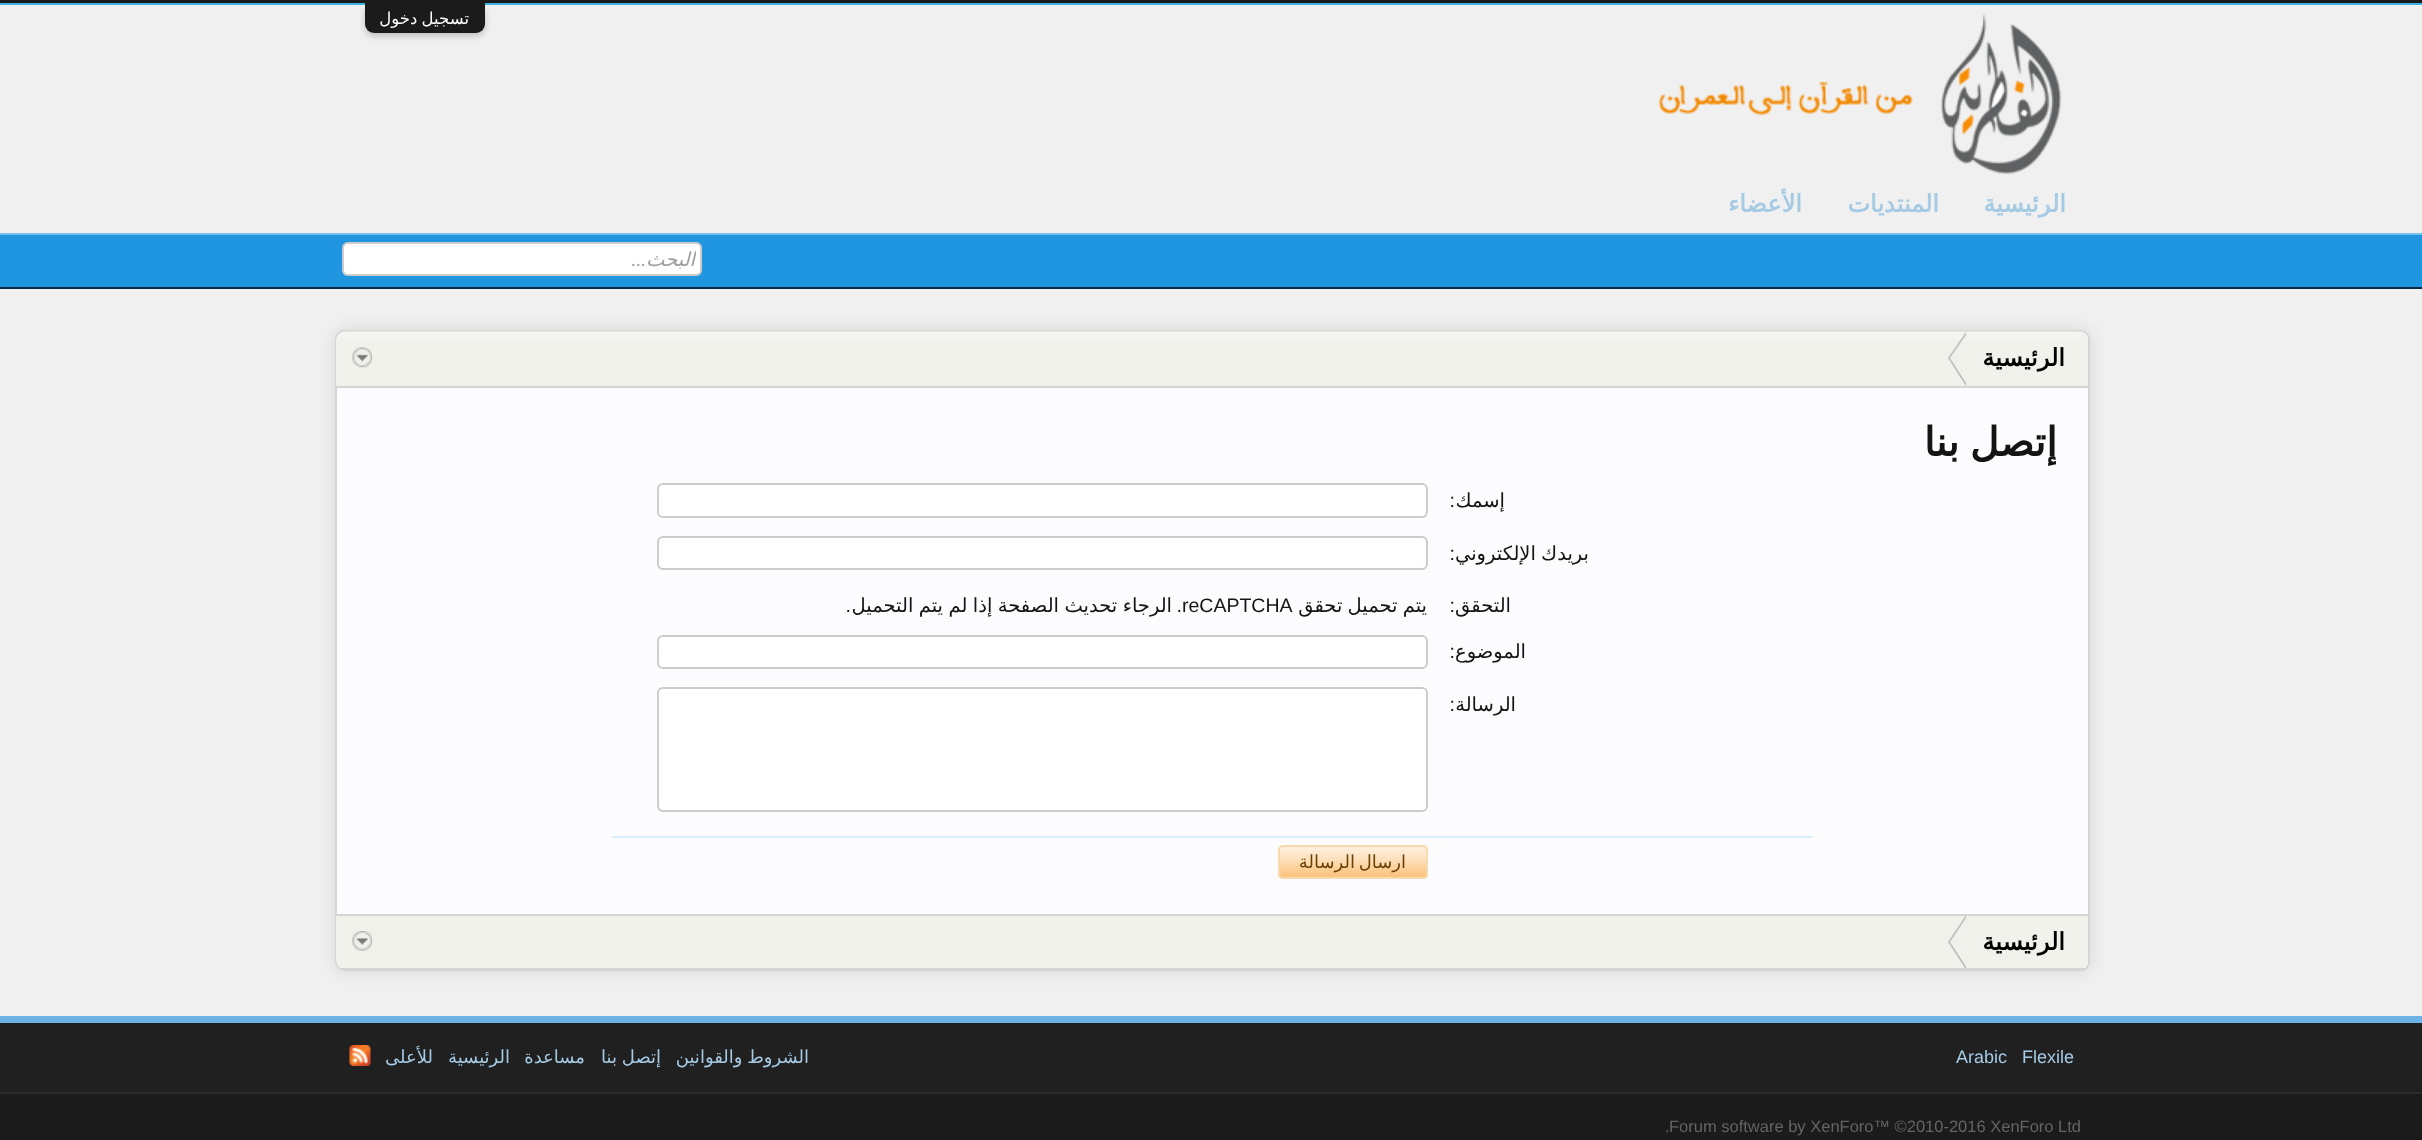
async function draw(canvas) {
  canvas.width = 2422;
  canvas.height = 1140;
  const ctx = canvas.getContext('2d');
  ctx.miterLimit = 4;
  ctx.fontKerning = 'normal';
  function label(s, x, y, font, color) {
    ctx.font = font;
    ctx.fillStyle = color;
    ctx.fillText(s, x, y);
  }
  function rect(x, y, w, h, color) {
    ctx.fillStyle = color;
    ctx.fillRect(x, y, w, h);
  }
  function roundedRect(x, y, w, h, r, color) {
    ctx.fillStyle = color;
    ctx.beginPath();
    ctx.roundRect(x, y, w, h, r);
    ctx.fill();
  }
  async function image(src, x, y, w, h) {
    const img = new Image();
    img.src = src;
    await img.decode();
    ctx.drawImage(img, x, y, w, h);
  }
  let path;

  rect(0, 0, 2422, 1140, '#f0f0f0');
  rect(0, 0, 2422, 3, '#1b1b1b');
  rect(0, 3, 2422, 2, '#3cb2e3');
  ctx.fillStyle = '#00000033';
  ctx.filter = 'blur(3px)';
  ctx.beginPath();
  ctx.roundRect(365, 6, 120, 30, 9);
  ctx.fill();
  ctx.filter = 'none';
  ctx.fillStyle = '#1b1b1b';
  ctx.beginPath();
  ctx.roundRect(365, 3, 120, 30, [0, 0, 9, 9]);
  ctx.fill();
  ctx.wordSpacing = '-1px';
  ctx.direction = 'rtl';
  label('تسجيل دخول', 469, 24, '16.5px DejaVu Sans', '#fff');
  await image('assets/img1.png', 1658, 13, 404, 161);
  ctx.wordSpacing = '0px';
  label('الرئيسية', 2066, 212, 'bold 24px DejaVu Sans', '#a5cae4');
  label('المنتديات', 1939, 212, 'bold 24px DejaVu Sans', '#a5cae4');
  label('الأعضاء', 1802, 212, 'bold 24px DejaVu Sans', '#a5cae4');
  rect(0, 235, 2422, 52, '#2096e1');
  rect(0, 233, 2422, 2, '#7cc1ec');
  rect(0, 287, 2422, 2, '#032a46');
  roundedRect(342, 242, 360, 34, 6, '#fff');
  ctx.beginPath();
  ctx.roundRect(343, 243, 358, 32, 5);
  ctx.strokeStyle = '#00000033';
  ctx.lineWidth = 2;
  ctx.stroke();
  ctx.save();
  ctx.beginPath();
  ctx.rect(368, 248, 328, 22);
  ctx.clip();
  label('البحث', 695, 266, 'italic 19.5px DejaVu Sans', '#a0a0a0');
  ctx.restore();
  label('...', 646, 266, 'italic 19.5px Carlito', '#a0a0a0');
  ctx.fillStyle = '#0000001a';
  ctx.filter = 'blur(9px)';
  ctx.beginPath();
  ctx.roundRect(335, 330, 1755, 641, 9);
  ctx.fill();
  ctx.filter = 'none';
  ctx.fillStyle = '#fcfcff';
  ctx.beginPath();
  ctx.roundRect(336, 331, 1753, 639, 8);
  ctx.fill();
  ctx.strokeStyle = '#d5d5d5';
  ctx.stroke();
  ctx.fillStyle = '#f1f1ec';
  ctx.beginPath();
  ctx.roundRect(336, 332, 1752, 55, [9, 9, 0, 0]);
  ctx.fill();
  await image('assets/img2.png', 336, 331, 1746, 9);
  rect(336, 386, 1752, 2, '#d5d5d5');
  label('الرئيسية', 2065, 366, 'bold 24px DejaVu Sans', '#000');
  ctx.fillStyle = '#bebebe';
  path = new Path2D('M1966 332V386L1948 358Z');
  ctx.fill(path);
  ctx.fillStyle = '#f1f1ec';
  path = new Path2D('M1968 332V386L1950 358Z');
  ctx.fill(path);
  await image('assets/img3.png', 352, 347, 20, 21);
  ctx.wordSpacing = '-2px';
  label('إتصل بنا', 2057, 456, 'bold 40px DejaVu Sans', '#141414');
  ctx.wordSpacing = '0px';
  label('إسمك', 1505, 507, '19.5px DejaVu Sans', '#141414');
  label(':', 1455, 507, '19.5px Liberation Sans', '#141414');
  ctx.fillStyle = '#fff';
  ctx.beginPath();
  ctx.roundRect(658, 484, 769, 33, 5);
  ctx.fill();
  ctx.strokeStyle = '#ccc';
  ctx.stroke();
  ctx.wordSpacing = '-1px';
  label('بريدك الإلكتروني', 1589, 560, '19.5px DejaVu Sans', '#141414');
  ctx.wordSpacing = '0px';
  label(':', 1455, 560, '19.5px Liberation Sans', '#141414');
  ctx.fillStyle = '#fff';
  ctx.beginPath();
  ctx.roundRect(658, 537, 769, 32, 5);
  ctx.fill();
  ctx.stroke();
  label('التحقق', 1511, 612, '19.5px DejaVu Sans', '#141414');
  label(':', 1455, 612, '19.5px Liberation Sans', '#141414');
  ctx.wordSpacing = '-1px';
  label('يتم تحميل تحقق', 1427, 612, '19.5px DejaVu Sans', '#141414');
  ctx.wordSpacing = '0px';
  ctx.direction = 'ltr';
  label('reCAPTCHA', 1182, 612, '19.5px Liberation Sans', '#141414');
  ctx.direction = 'rtl';
  label('.', 1182, 612, '19.5px Liberation Sans', '#141414');
  ctx.wordSpacing = '-0.75px';
  label('الرجاء تحديث الصفحة إذا لم يتم التحميل', 1172, 612, '19.5px DejaVu Sans', '#141414');
  ctx.wordSpacing = '0px';
  label('.', 851, 612, '19.5px Liberation Sans', '#141414');
  label('الموضوع', 1526, 658, '19.5px DejaVu Sans', '#141414');
  label(':', 1455, 658, '19.5px Liberation Sans', '#141414');
  ctx.fillStyle = '#fff';
  ctx.beginPath();
  ctx.roundRect(658, 636, 769, 32, 5);
  ctx.fill();
  ctx.stroke();
  label('الرسالة', 1516, 711, '19.5px DejaVu Sans', '#141414');
  label(':', 1455, 711, '19.5px Liberation Sans', '#141414');
  ctx.fillStyle = '#fff';
  ctx.beginPath();
  ctx.roundRect(658, 688, 769, 123, 5);
  ctx.fill();
  ctx.stroke();
  rect(612, 836, 1200, 2, '#d7edfc');
  roundedRect(1278, 845, 150, 34, 5, '#f9bc6d');
  await image('assets/img4.png', 1278, 845, 150, 33);
  ctx.beginPath();
  ctx.roundRect(1279, 846, 148, 32, 4);
  ctx.strokeStyle = '#f9d9b0';
  ctx.stroke();
  ctx.wordSpacing = '-2px';
  label('ارسال الرسالة', 1406, 868, '18px DejaVu Sans', '#6d3f03');
  ctx.fillStyle = '#f1f1ec';
  ctx.beginPath();
  ctx.roundRect(336, 914, 1752, 55, [0, 0, 9, 9]);
  ctx.fill();
  await image('assets/img5.png', 336, 913, 1752, 1);
  rect(341, 968, 1743, 1, '#d5d5d5');
  rect(336, 914, 1752, 2, '#d5d5d5');
  ctx.wordSpacing = '0px';
  label('الرئيسية', 2065, 950, 'bold 24px DejaVu Sans', '#000');
  ctx.fillStyle = '#bebebe';
  path = new Path2D('M1966 915L1948 942L1965 968H1966Z');
  ctx.fill(path);
  ctx.fillStyle = '#f1f1ec';
  path = new Path2D('M1968 915L1950 942L1967 968H1968Z');
  ctx.fill(path);
  await image('assets/img6.png', 352, 931, 20, 20);
  rect(0, 1094, 2422, 46, '#1b1b1b');
  rect(0, 1023, 2422, 69, '#202020');
  rect(0, 1016, 2422, 7, '#6cb2e4');
  rect(0, 1092, 2422, 2, '#2b2b2b');
  ctx.direction = 'ltr';
  label('Flexile', 2022, 1063, '18px Liberation Sans', '#a5cae4');
  label('Arabic', 1956, 1063, '18px Liberation Sans', '#a5cae4');
  ctx.wordSpacing = '-1px';
  ctx.direction = 'rtl';
  label('الشروط والقوانين', 809, 1063, '18px DejaVu Sans', '#a5cae4');
  label('إتصل بنا', 661, 1063, '18px DejaVu Sans', '#a5cae4');
  ctx.wordSpacing = '0px';
  label('مساعدة', 585, 1063, '18px DejaVu Sans', '#a5cae4');
  label('الرئيسية', 510, 1063, '18px DejaVu Sans', '#a5cae4');
  label('للأعلى', 433, 1063, '18px DejaVu Sans', '#a5cae4');
  await image('assets/img7.png', 349, 1045, 22, 21);
  ctx.direction = 'ltr';
  label('Forum software by XenForo™ ©2010-2016 XenForo Ltd', 1669, 1132, '16.5px Liberation Sans', '#646464');
  label('.', 1665, 1132, '16.5px Liberation Sans', '#646464');
}

draw(document.querySelector('canvas'));
